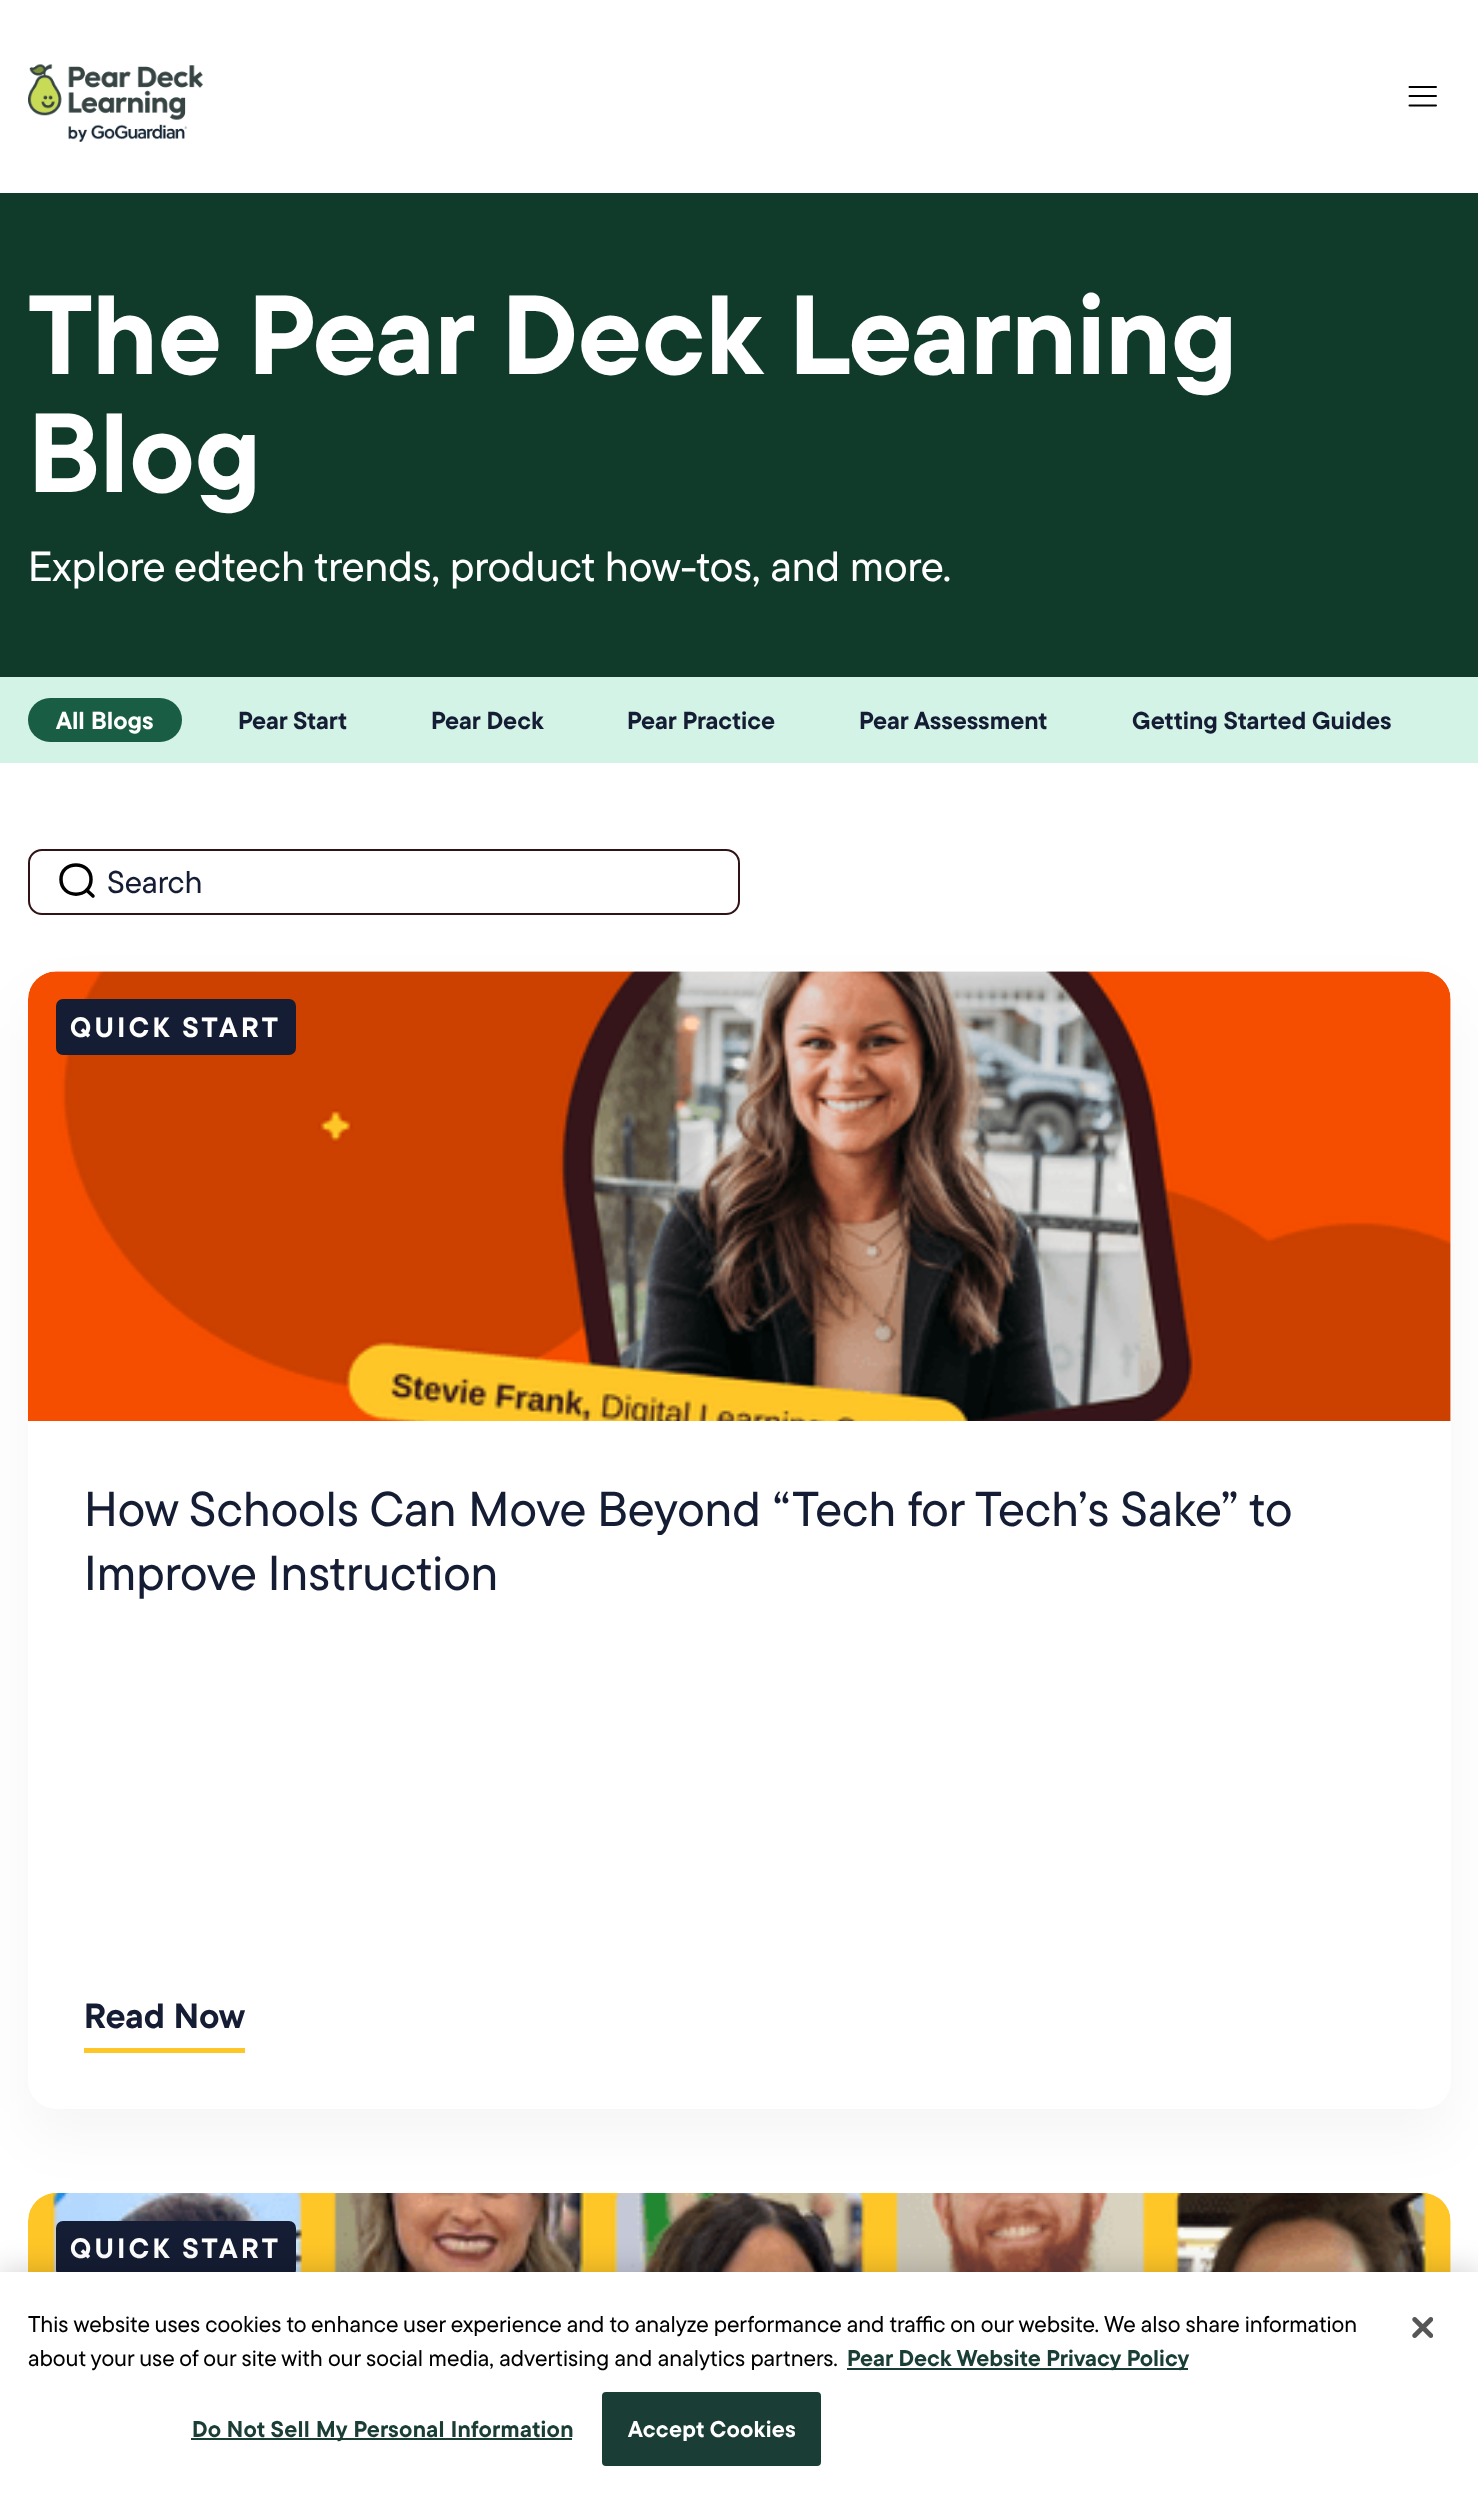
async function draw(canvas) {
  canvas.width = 1478;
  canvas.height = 2493;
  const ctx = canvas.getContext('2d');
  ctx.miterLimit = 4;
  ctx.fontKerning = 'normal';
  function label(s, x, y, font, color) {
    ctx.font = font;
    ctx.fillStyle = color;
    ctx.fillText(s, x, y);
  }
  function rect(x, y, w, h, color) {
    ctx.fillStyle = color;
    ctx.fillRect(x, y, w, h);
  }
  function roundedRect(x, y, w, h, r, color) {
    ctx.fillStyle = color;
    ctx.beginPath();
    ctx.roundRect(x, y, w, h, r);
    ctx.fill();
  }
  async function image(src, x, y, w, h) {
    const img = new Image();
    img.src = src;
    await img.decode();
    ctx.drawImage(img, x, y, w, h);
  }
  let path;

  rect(0, 0, 1478, 2493, '#fff');
  await image('assets/img1.png', 28, 64, 175, 78);
  path = new Path2D('M1409.5 105.5H1436M1409.5 96H1436M1409.5 87H1436');
  ctx.strokeStyle = '#000';
  ctx.lineWidth = 2;
  ctx.lineCap = 'round';
  ctx.stroke(path);
  rect(0, 193, 1478, 484, '#103b2b');
  label('The Pear Deck Learning', 28, 374, 'bold 112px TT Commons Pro', '#fff');
  label('Blog', 28, 492, 'bold 112px TT Commons Pro', '#fff');
  label('Explore edtech trends, product how-tos, and more.', 28, 581, '500 42px TT Commons Pro', '#fff');
  rect(0, 677, 1478, 86, '#d3f3e7');
  roundedRect(28, 698, 154, 44, 22, '#195e44');
  label('All Blogs', 56, 729, 'bold 24.5px TT Commons Pro', '#fff');
  label('Pear Start', 238, 729, 'bold 24.5px TT Commons Pro', '#151d34');
  label('Pear Deck', 431, 729, 'bold 24.5px TT Commons Pro', '#151d34');
  label('Pear Practice', 627, 729, 'bold 24.5px TT Commons Pro', '#151d34');
  label('Pear Assessment', 859, 729, 'bold 24.5px TT Commons Pro', '#151d34');
  label('Getting Started Guides', 1132, 729, 'bold 24.5px TT Commons Pro', '#151d34');
  ctx.beginPath();
  ctx.roundRect(29, 850, 710, 64, 13);
  ctx.strokeStyle = '#311317';
  ctx.stroke();
  path = new Path2D('M93 896L86.5 890M91 879.5C91 899 61 899 61 879.5C61 860 91 860 91 879.5Z');
  ctx.strokeStyle = '#000';
  ctx.lineWidth = 3.5;
  ctx.lineJoin = 'round';
  ctx.stroke(path);
  label('Search', 107, 893, '500 31.5px TT Commons Pro', '#151d34');
  ctx.fillStyle = '#0000000a';
  ctx.filter = 'blur(28px)';
  ctx.beginPath();
  ctx.roundRect(28, 999, 1423, 1138, 28);
  ctx.fill();
  ctx.filter = 'none';
  roundedRect(28, 971, 1423, 1138, 28, '#fff');
  await image('assets/img2.png', 28, 971, 1423, 450);
  roundedRect(56, 999, 240, 56, 7, '#151d34');
  ctx.letterSpacing = '3.4px';
  label('QUICK START', 70, 1037, 'bold 28px TT Commons Pro', '#fff');
  ctx.letterSpacing = '0px';
  label('How Schools Can Move Beyond “Tech for Tech’s Sake” to', 84, 1526, '500 49px TT Commons Pro', '#151d34');
  label('Improve Instruction', 84, 1590, '500 49px TT Commons Pro', '#151d34');
  rect(84, 2048, 161, 5, '#ffc628');
  label('Read Now', 84, 2028, 'bold 35px TT Commons Pro', '#151d34');
  await image('assets/img3.png', 28, 2193, 1423, 79);
  roundedRect(56, 2221, 240, 56, 7, '#151d34');
  ctx.letterSpacing = '3.4px';
  label('QUICK START', 70, 2258, 'bold 28px TT Commons Pro', '#fff');
  ctx.fillStyle = '#00000033';
  ctx.filter = 'blur(16px)';
  ctx.beginPath();
  ctx.rect(0, 2272, 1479, 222);
  ctx.fill();
  ctx.filter = 'none';
  rect(0, 2272, 1478, 221, '#fff');
  ctx.letterSpacing = '0px';
  label('This website uses cookies to enhance user experience and to analyze performance and traffic on our website. We also share information', 28, 2332, '500 22.75px TT Commons Pro', '#000');
  label('about your use of our site with our social media, advertising and analytics partners.', 28, 2366, '500 22.75px TT Commons Pro', '#000');
  rect(847, 2368, 341, 2, '#1a3d35');
  label('Pear Deck Website Privacy Policy', 847, 2366, 'bold 22.75px TT Commons Pro', '#1a3d35');
  rect(191, 2438, 381, 2, '#1a3d35');
  ctx.letterSpacing = '0.25px';
  label('Do Not Sell My Personal Information', 192, 2437, 'bold 22.75px TT Commons Pro', '#1a3d35');
  ctx.beginPath();
  ctx.roundRect(603, 2393, 217, 72, 3);
  ctx.fill();
  ctx.strokeStyle = '#1a3d35';
  ctx.lineWidth = 2;
  ctx.lineJoin = 'miter';
  ctx.stroke();
  label('Accept Cookies', 628, 2437, 'bold 22.75px TT Commons Pro', '#fff');
  await image('assets/img4.png', 1412, 2317, 21, 21);
}

draw(document.querySelector('canvas'));
